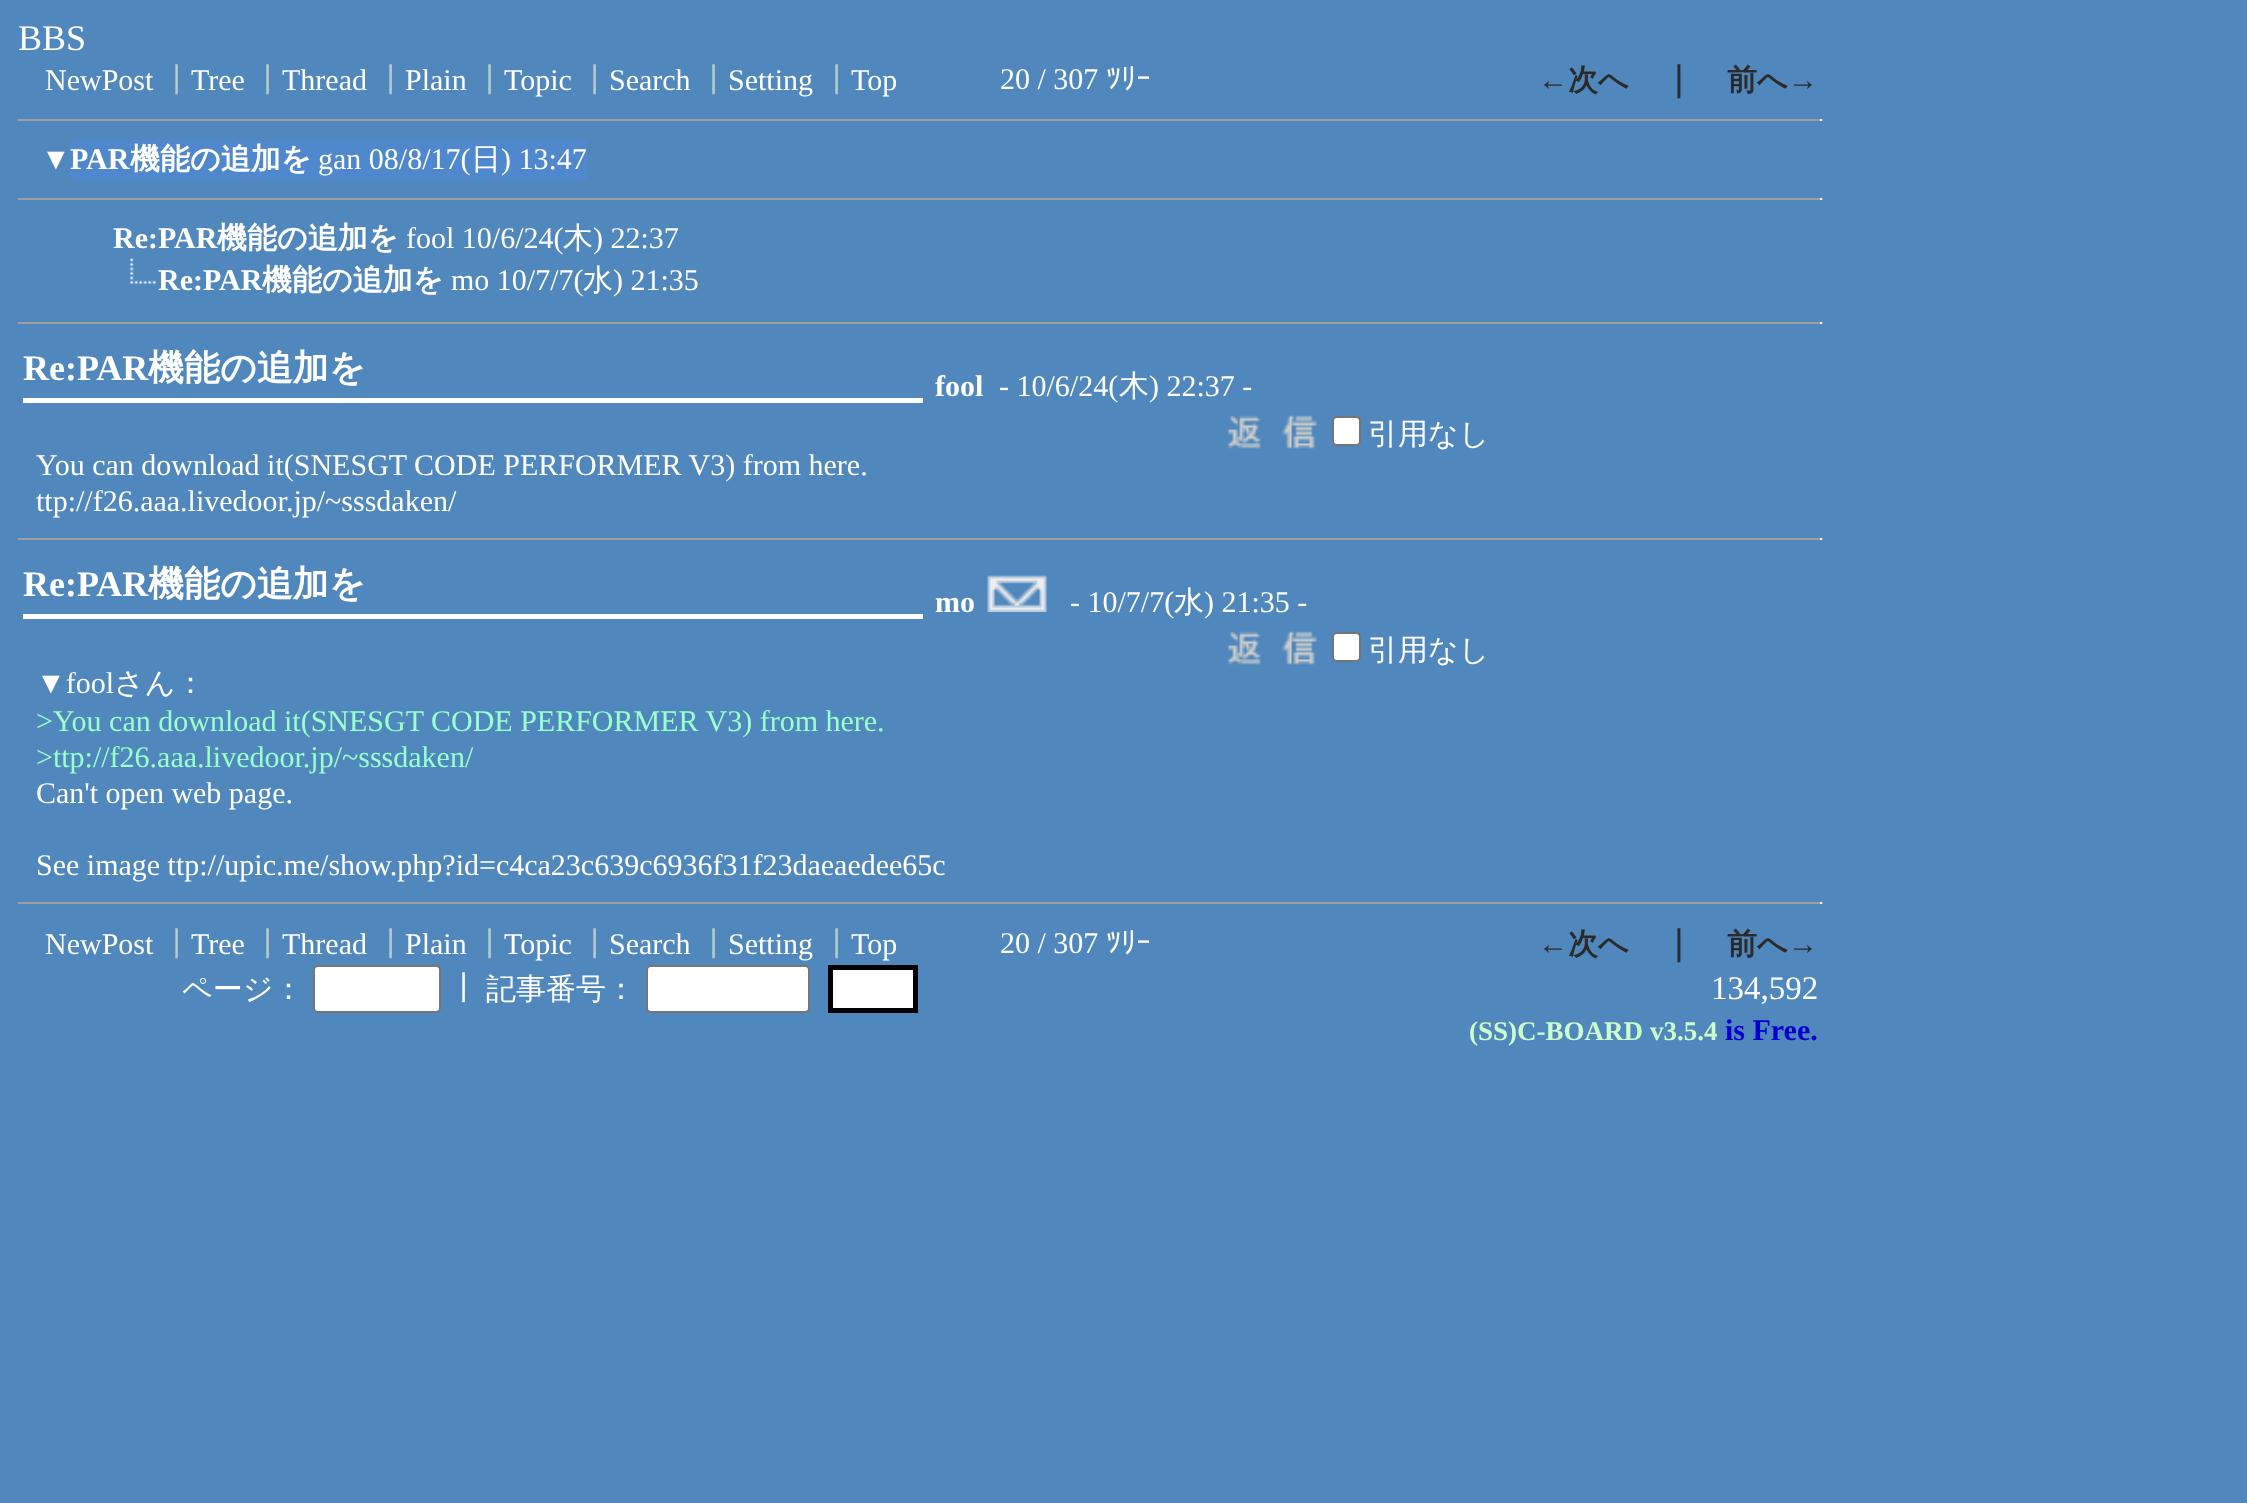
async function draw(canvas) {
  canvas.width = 2247;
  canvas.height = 1503;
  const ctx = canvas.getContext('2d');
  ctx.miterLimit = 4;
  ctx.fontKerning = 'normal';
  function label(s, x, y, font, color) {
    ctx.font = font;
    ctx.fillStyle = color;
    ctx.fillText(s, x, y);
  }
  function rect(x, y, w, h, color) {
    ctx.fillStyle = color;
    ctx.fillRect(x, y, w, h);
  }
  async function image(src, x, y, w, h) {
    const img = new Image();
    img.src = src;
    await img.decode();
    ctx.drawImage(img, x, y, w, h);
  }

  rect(0, 0, 2247, 1503, '#5088bd');
  label('BBS', 18, 50, '36px Liberation Serif', '#fff');
  label('NewPost', 45, 90, '30px Liberation Serif', '#fff');
  label('┃', 161, 90, '500 30px WenQuanYi Zen Hei', '#bcc');
  label('Tree', 191, 90, '30px Liberation Serif', '#fff');
  label('┃', 252, 90, '500 30px WenQuanYi Zen Hei', '#bcc');
  label('Thread', 282, 90, '30px Liberation Serif', '#fff');
  label('┃', 375, 90, '500 30px WenQuanYi Zen Hei', '#bcc');
  label('Plain', 405, 90, '30px Liberation Serif', '#fff');
  label('┃', 474, 90, '500 30px WenQuanYi Zen Hei', '#bcc');
  label('Topic', 504, 90, '30px Liberation Serif', '#fff');
  label('┃', 579, 90, '500 30px WenQuanYi Zen Hei', '#bcc');
  label('Search', 609, 90, '30px Liberation Serif', '#fff');
  label('┃', 698, 90, '500 30px WenQuanYi Zen Hei', '#bcc');
  label('Setting', 728, 90, '30px Liberation Serif', '#fff');
  label('┃', 821, 90, '500 30px WenQuanYi Zen Hei', '#bcc');
  label('Top', 851, 90, '30px Liberation Serif', '#fff');
  label('20 / 307', 1000, 89, '30px Liberation Serif', '#fff');
  label('ﾂﾘｰ', 1106, 89, '30px IPAPGothic', '#fff');
  label('←', 1538, 90, 'bold 30px Liberation Serif', '#2a2a2a');
  label('次へ', 1568, 90, 'bold 30px WenQuanYi Zen Hei', '#2a2a2a');
  label('｜', 1662, 90, 'bold 33px WenQuanYi Zen Hei', '#2a2a2a');
  label('前へ', 1727, 90, 'bold 30px WenQuanYi Zen Hei', '#2a2a2a');
  label('→', 1788, 90, 'bold 30px Liberation Serif', '#2a2a2a');
  rect(18, 119, 1805, 2, '#9f9f9f');
  rect(1820, 119, 2, 2, '#eee');
  label('▼', 41, 169, '30px Liberation Serif', '#fff');
  rect(70, 140, 517, 40, '#5088cd');
  label('PAR', 70, 169, 'bold 30px Liberation Serif', '#fff');
  label('機能の追加を', 130, 169, 'bold 30px WenQuanYi Zen Hei', '#fff');
  label('gan 08/8/17(', 318, 169, '30px Liberation Serif', '#fff');
  label('日', 471, 169, '500 30px WenQuanYi Zen Hei', '#fff');
  label(') 13:47', 501, 169, '30px Liberation Serif', '#fff');
  rect(18, 198, 1805, 2, '#9f9f9f');
  rect(1820, 198, 2, 2, '#eee');
  label('Re:PAR', 113, 248, 'bold 30px Liberation Serif', '#fff');
  label('機能の追加を', 217, 248, 'bold 30px WenQuanYi Zen Hei', '#fff');
  label('fool 10/6/24(', 406, 248, '30px Liberation Serif', '#fff');
  label('木', 563, 248, '500 30px WenQuanYi Zen Hei', '#fff');
  label(') 22:37', 593, 248, '30px Liberation Serif', '#fff');
  await image('assets/img1.png', 130, 258, 26, 27);
  label('Re:PAR', 158, 290, 'bold 30px Liberation Serif', '#fff');
  label('機能の追加を', 262, 290, 'bold 30px WenQuanYi Zen Hei', '#fff');
  label('mo 10/7/7(', 451, 290, '30px Liberation Serif', '#fff');
  label('水', 583, 290, '500 30px WenQuanYi Zen Hei', '#fff');
  label(') 21:35', 613, 290, '30px Liberation Serif', '#fff');
  rect(18, 322, 1805, 2, '#9f9f9f');
  rect(1820, 322, 2, 2, '#eee');
  label('Re:PAR', 23, 380, 'bold 36px Liberation Serif', '#fff');
  label('機能の追加を', 148, 380, 'bold 36px WenQuanYi Zen Hei', '#fff');
  rect(23, 398, 900, 5, '#fff');
  label('fool', 935, 396, 'bold 30px Liberation Serif', '#fff');
  label('- 10/6/24(', 999, 396, '30px Liberation Serif', '#fff');
  label('木', 1119, 396, '500 30px WenQuanYi Zen Hei', '#fff');
  label(') 22:37 -', 1149, 396, '30px Liberation Serif', '#fff');
  await image('assets/img2.png', 1228, 415, 89, 34);
  ctx.beginPath();
  ctx.roundRect(1333, 417, 27, 28, 4);
  ctx.fill();
  ctx.strokeStyle = '#767676';
  ctx.lineWidth = 2;
  ctx.stroke();
  label('引用なし', 1368, 444, '500 30px WenQuanYi Zen Hei', '#fff');
  label('You can download it(SNESGT CODE PERFORMER V3) from here.', 36, 475, '30px Liberation Serif', '#fff');
  label('ttp://f26.aaa.livedoor.jp/~sssdaken/', 36, 511, '30px Liberation Serif', '#fff');
  rect(18, 538, 1805, 2, '#9f9f9f');
  rect(1820, 538, 2, 2, '#eee');
  label('Re:PAR', 23, 596, 'bold 36px Liberation Serif', '#fff');
  label('機能の追加を', 148, 596, 'bold 36px WenQuanYi Zen Hei', '#fff');
  rect(23, 614, 900, 5, '#fff');
  label('mo', 935, 612, 'bold 30px Liberation Serif', '#fff');
  await image('assets/img3.png', 987, 575, 60, 37);
  label('- 10/7/7(', 1070, 612, '30px Liberation Serif', '#fff');
  label('水', 1174, 612, '500 30px WenQuanYi Zen Hei', '#fff');
  label(') 21:35 -', 1204, 612, '30px Liberation Serif', '#fff');
  await image('assets/img2.png', 1228, 631, 89, 34);
  ctx.beginPath();
  ctx.roundRect(1333, 633, 27, 28, 4);
  ctx.fill();
  ctx.stroke();
  label('引用なし', 1368, 660, '500 30px WenQuanYi Zen Hei', '#fff');
  label('▼fool', 36, 693, '30px Liberation Serif', '#fff');
  label('さん：', 114, 693, '500 30px WenQuanYi Zen Hei', '#fff');
  label('>You can download it(SNESGT CODE PERFORMER V3) from here.', 36, 731, '30px Liberation Serif', '#9fc');
  label('>ttp://f26.aaa.livedoor.jp/~sssdaken/', 36, 767, '30px Liberation Serif', '#9fc');
  label('Can\'t open web page.', 36, 803, '30px Liberation Serif', '#fff');
  label('See image ttp://upic.me/show.php?id=c4ca23c639c6936f31f23daeaedee65c', 36, 875, '30px Liberation Serif', '#fff');
  rect(18, 902, 1805, 2, '#9f9f9f');
  rect(1820, 902, 2, 2, '#eee');
  label('NewPost', 45, 954, '30px Liberation Serif', '#fff');
  label('┃', 161, 954, '500 30px WenQuanYi Zen Hei', '#bcc');
  label('Tree', 191, 954, '30px Liberation Serif', '#fff');
  label('┃', 252, 954, '500 30px WenQuanYi Zen Hei', '#bcc');
  label('Thread', 282, 954, '30px Liberation Serif', '#fff');
  label('┃', 375, 954, '500 30px WenQuanYi Zen Hei', '#bcc');
  label('Plain', 405, 954, '30px Liberation Serif', '#fff');
  label('┃', 474, 954, '500 30px WenQuanYi Zen Hei', '#bcc');
  label('Topic', 504, 954, '30px Liberation Serif', '#fff');
  label('┃', 579, 954, '500 30px WenQuanYi Zen Hei', '#bcc');
  label('Search', 609, 954, '30px Liberation Serif', '#fff');
  label('┃', 698, 954, '500 30px WenQuanYi Zen Hei', '#bcc');
  label('Setting', 728, 954, '30px Liberation Serif', '#fff');
  label('┃', 821, 954, '500 30px WenQuanYi Zen Hei', '#bcc');
  label('Top', 851, 954, '30px Liberation Serif', '#fff');
  label('20 / 307', 1000, 953, '30px Liberation Serif', '#fff');
  label('ﾂﾘｰ', 1106, 953, '30px IPAPGothic', '#fff');
  label('←', 1538, 954, 'bold 30px Liberation Serif', '#2a2a2a');
  label('次へ', 1568, 954, 'bold 30px WenQuanYi Zen Hei', '#2a2a2a');
  label('｜', 1662, 954, 'bold 33px WenQuanYi Zen Hei', '#2a2a2a');
  label('前へ', 1727, 954, 'bold 30px WenQuanYi Zen Hei', '#2a2a2a');
  label('→', 1788, 954, 'bold 30px Liberation Serif', '#2a2a2a');
  label('ページ：', 182, 999, '500 30px WenQuanYi Zen Hei', '#fff');
  ctx.beginPath();
  ctx.roundRect(314, 966, 126, 46, 4);
  ctx.fill();
  ctx.stroke();
  label('┃', 448, 998, '500 30px WenQuanYi Zen Hei', '#fff');
  label('記事番号：', 486, 999, '500 30px WenQuanYi Zen Hei', '#fff');
  ctx.beginPath();
  ctx.roundRect(647, 966, 162, 46, 4);
  ctx.fill();
  ctx.stroke();
  ctx.beginPath();
  ctx.rect(830.5, 967.5, 85, 43);
  ctx.fill();
  ctx.strokeStyle = '#000';
  ctx.lineWidth = 5;
  ctx.stroke();
  label('134,592', 1711, 999, '33px Liberation Serif', '#fff');
  label('(SS)C-BOARD', 1469, 1040, 'bold 27px Liberation Serif', '#cfc');
  label('v3.5.4', 1650, 1040, 'bold 27px Liberation Serif', '#cfc');
  label('is Free.', 1725, 1040, 'bold 30px Liberation Serif', '#00c');
}

draw(document.querySelector('canvas'));
